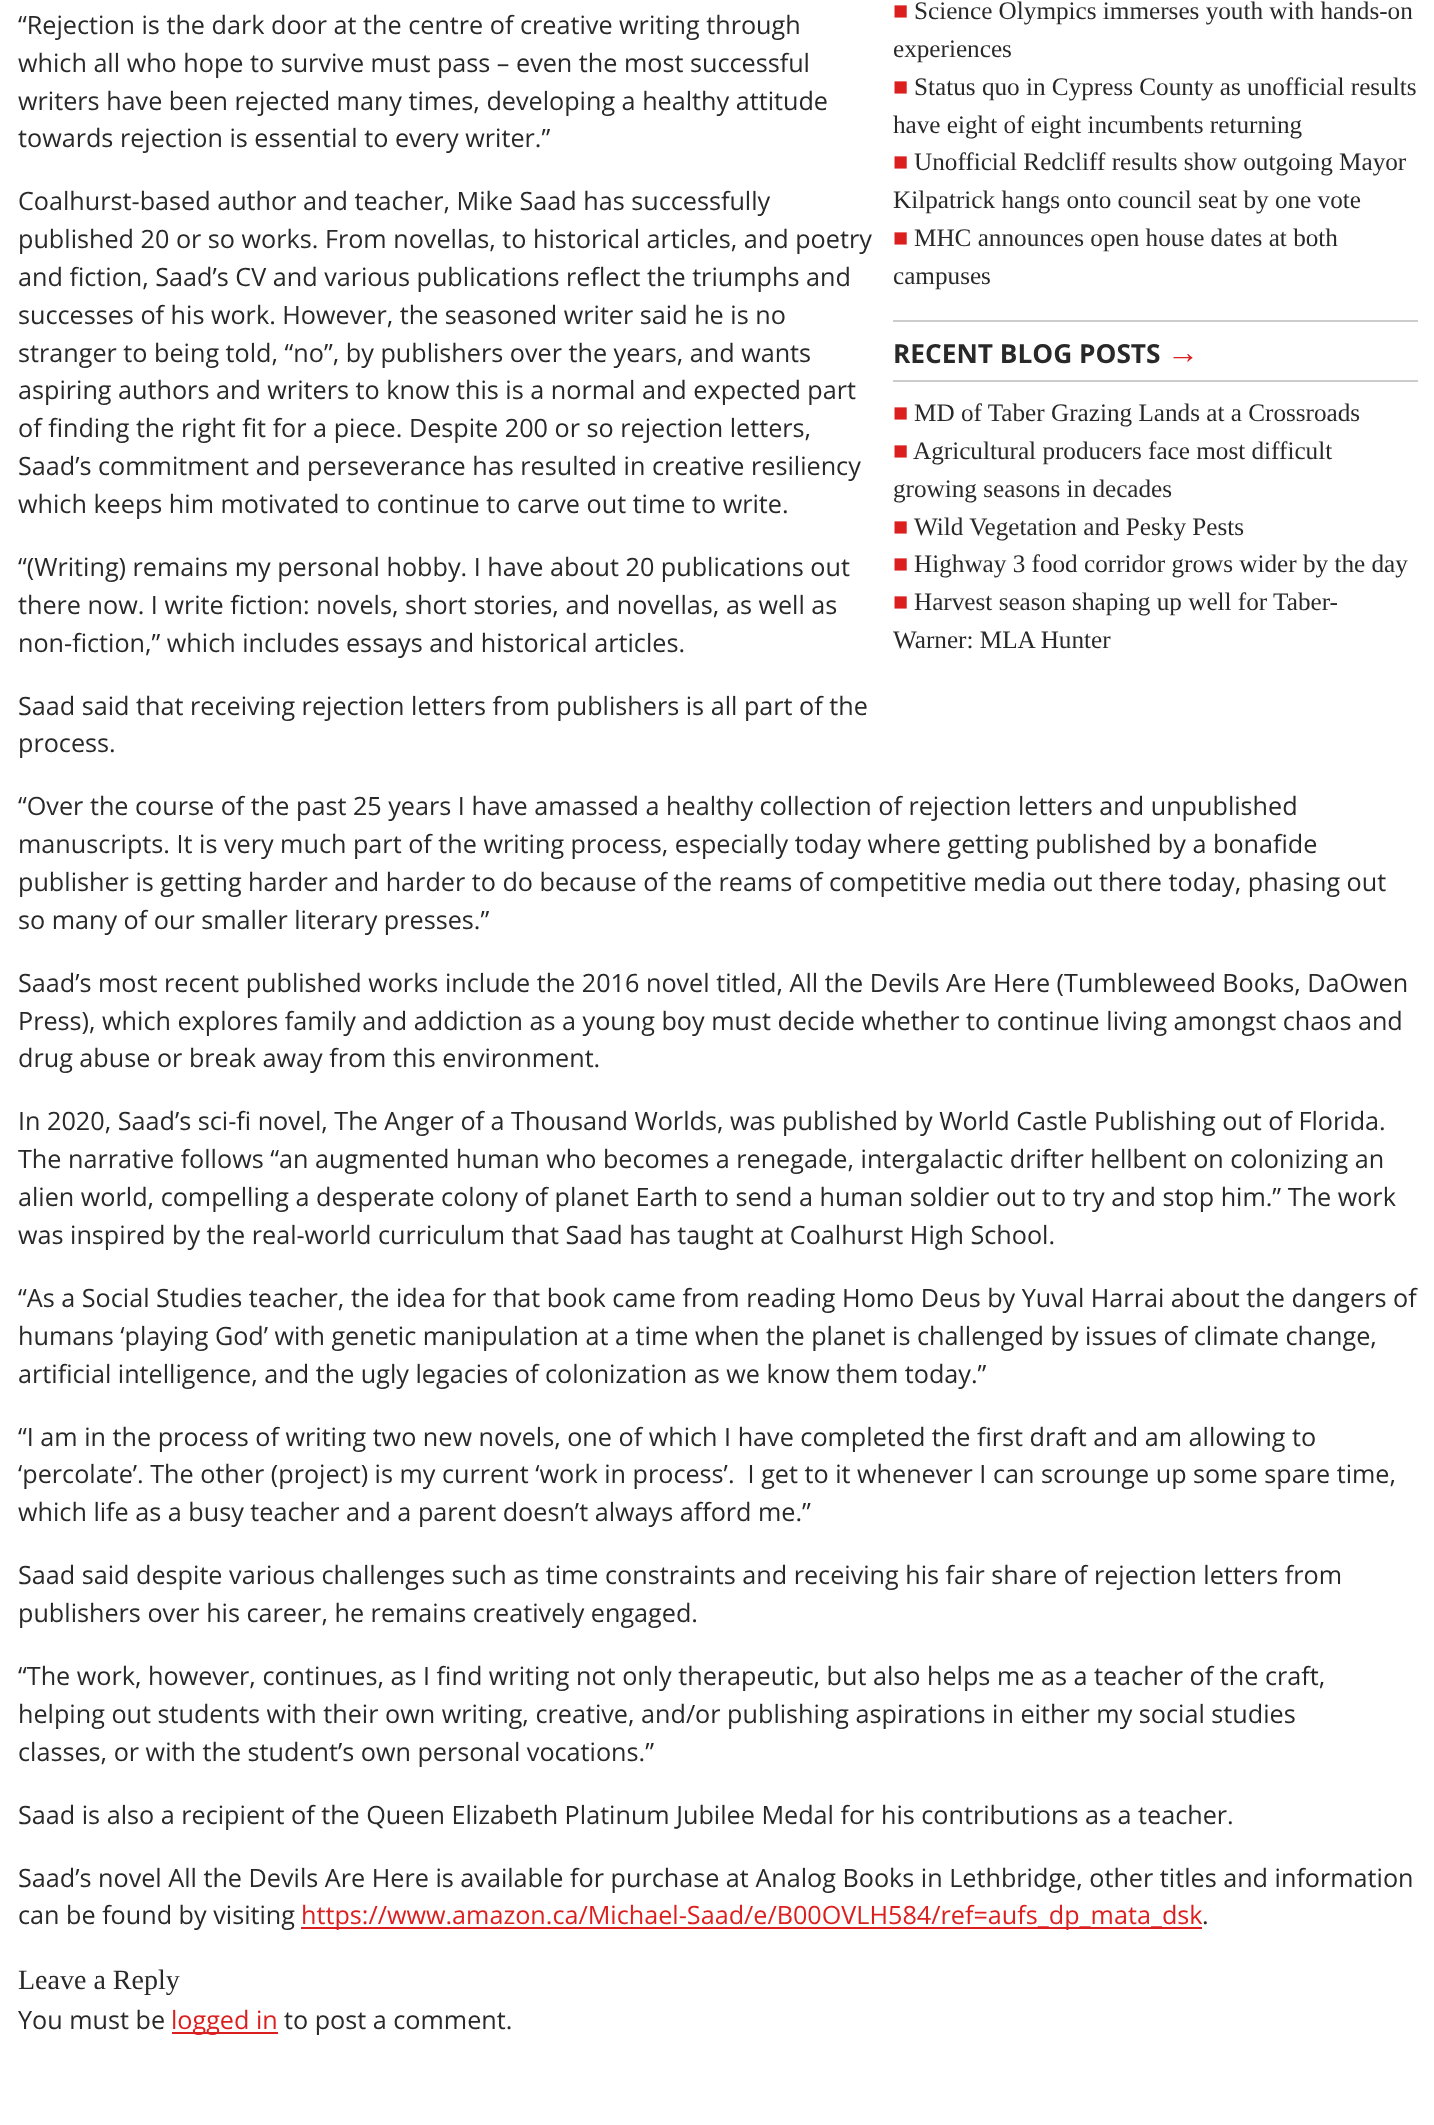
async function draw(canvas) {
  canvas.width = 1434;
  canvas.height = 2125;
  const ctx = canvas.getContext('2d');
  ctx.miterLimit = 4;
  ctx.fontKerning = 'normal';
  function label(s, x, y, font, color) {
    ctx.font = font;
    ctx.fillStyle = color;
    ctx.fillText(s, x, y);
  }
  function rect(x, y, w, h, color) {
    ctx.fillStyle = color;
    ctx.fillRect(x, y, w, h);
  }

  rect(0, 0, 1434, 2125, '#fff');
  label('■', 893, 19, '25.2px Liberation Serif', '#db1f1f');
  label('Science Olympics immerses youth with hands-on', 914, 19, '25.2px Liberation Serif', '#292929');
  label('experiences', 893, 57, '25.2px Liberation Serif', '#292929');
  label('■', 893, 95, '25.2px Liberation Serif', '#db1f1f');
  label('Status quo in Cypress County as unofficial results', 914, 95, '25.2px Liberation Serif', '#292929');
  label('have eight of eight incumbents returning', 893, 133, '25.2px Liberation Serif', '#292929');
  label('■', 893, 170, '25.2px Liberation Serif', '#db1f1f');
  label('Unofficial Redcliff results show outgoing Mayor', 914, 170, '25.2px Liberation Serif', '#292929');
  label('Kilpatrick hangs onto council seat by one vote', 893, 208, '25.2px Liberation Serif', '#292929');
  label('■', 893, 246, '25.2px Liberation Serif', '#db1f1f');
  label('MHC announces open house dates at both', 914, 246, '25.2px Liberation Serif', '#292929');
  label('campuses', 893, 284, '25.2px Liberation Serif', '#292929');
  rect(893, 320, 525, 2, '#ccc');
  rect(893, 380, 525, 2, '#ccc');
  label('RECENT BLOG POSTS', 893, 363, 'bold 26.25px Open Sans', '#292929');
  label('→', 1167, 363, 'bold 32px Liberation Sans', '#db1f1f');
  label('■', 893, 421, '25.2px Liberation Serif', '#db1f1f');
  label('MD of Taber Grazing Lands at a Crossroads', 914, 421, '25.2px Liberation Serif', '#292929');
  label('■', 893, 459, '25.2px Liberation Serif', '#db1f1f');
  label('Agricultural producers face most difficult', 913, 459, '25.2px Liberation Serif', '#292929');
  label('growing seasons in decades', 893, 497, '25.2px Liberation Serif', '#292929');
  label('■', 893, 535, '25.2px Liberation Serif', '#db1f1f');
  label('Wild Vegetation and Pesky Pests', 914, 535, '25.2px Liberation Serif', '#292929');
  label('■', 893, 572, '25.2px Liberation Serif', '#db1f1f');
  label('Highway 3 food corridor grows wider by the day', 914, 572, '25.2px Liberation Serif', '#292929');
  label('■', 893, 610, '25.2px Liberation Serif', '#db1f1f');
  label('Harvest season shaping up well for Taber-', 914, 610, '25.2px Liberation Serif', '#292929');
  label('Warner: MLA Hunter', 893, 648, '25.2px Liberation Serif', '#292929');
  label('“Rejection is the dark door at the centre of creative writing through', 18, 34, '25.2px Open Sans', '#292929');
  label('which all who hope to survive must pass – even the most successful', 18, 72, '25.2px Open Sans', '#292929');
  label('writers have been rejected many times, developing a healthy attitude', 18, 110, '25.2px Open Sans', '#292929');
  label('towards rejection is essential to every writer.”', 18, 147, '25.2px Open Sans', '#292929');
  label('Coalhurst-based author and teacher, Mike Saad has successfully', 18, 210, '25.2px Open Sans', '#292929');
  label('published 20 or so works. From novellas, to historical articles, and poetry', 18, 248, '25.2px Open Sans', '#292929');
  label('and fiction, Saad’s CV and various publications reflect the triumphs and', 18, 286, '25.2px Open Sans', '#292929');
  label('successes of his work. However, the seasoned writer said he is no', 18, 324, '25.2px Open Sans', '#292929');
  label('stranger to being told, “no”, by publishers over the years, and wants', 18, 362, '25.2px Open Sans', '#292929');
  label('aspiring authors and writers to know this is a normal and expected part', 18, 399, '25.2px Open Sans', '#292929');
  label('of finding the right fit for a piece. Despite 200 or so rejection letters,', 18, 437, '25.2px Open Sans', '#292929');
  label('Saad’s commitment and perseverance has resulted in creative resiliency', 18, 475, '25.2px Open Sans', '#292929');
  label('which keeps him motivated to continue to carve out time to write.', 18, 513, '25.2px Open Sans', '#292929');
  label('“(Writing) remains my personal hobby. I have about 20 publications out', 18, 576, '25.2px Open Sans', '#292929');
  label('there now. I write fiction: novels, short stories, and novellas, as well as', 18, 614, '25.2px Open Sans', '#292929');
  label('non-fiction,” which includes essays and historical articles.', 18, 652, '25.2px Open Sans', '#292929');
  label('Saad said that receiving rejection letters from publishers is all part of the', 18, 715, '25.2px Open Sans', '#292929');
  label('process.', 18, 752, '25.2px Open Sans', '#292929');
  label('“Over the course of the past 25 years I have amassed a healthy collection of rejection letters and unpublished', 18, 815, '25.2px Open Sans', '#292929');
  label('manuscripts. It is very much part of the writing process, especially today where getting published by a bonafide', 18, 853, '25.2px Open Sans', '#292929');
  label('publisher is getting harder and harder to do because of the reams of competitive media out there today, phasing out', 18, 891, '25.2px Open Sans', '#292929');
  label('so many of our smaller literary presses.”', 18, 929, '25.2px Open Sans', '#292929');
  label('Saad’s most recent published works include the 2016 novel titled, All the Devils Are Here (Tumbleweed Books, DaOwen', 18, 992, '25.2px Open Sans', '#292929');
  label('Press), which explores family and addiction as a young boy must decide whether to continue living amongst chaos and', 18, 1030, '25.2px Open Sans', '#292929');
  label('drug abuse or break away from this environment.', 18, 1067, '25.2px Open Sans', '#292929');
  label('In 2020, Saad’s sci-fi novel, The Anger of a Thousand Worlds, was published by World Castle Publishing out of Florida.', 18, 1130, '25.2px Open Sans', '#292929');
  label('The narrative follows “an augmented human who becomes a renegade, intergalactic drifter hellbent on colonizing an', 18, 1168, '25.2px Open Sans', '#292929');
  label('alien world, compelling a desperate colony of planet Earth to send a human soldier out to try and stop him.” The work', 18, 1206, '25.2px Open Sans', '#292929');
  label('was inspired by the real-world curriculum that Saad has taught at Coalhurst High School.', 18, 1244, '25.2px Open Sans', '#292929');
  label('“As a Social Studies teacher, the idea for that book came from reading Homo Deus by Yuval Harrai about the dangers of', 18, 1307, '25.2px Open Sans', '#292929');
  label('humans ‘playing God’ with genetic manipulation at a time when the planet is challenged by issues of climate change,', 18, 1345, '25.2px Open Sans', '#292929');
  label('artificial intelligence, and the ugly legacies of colonization as we know them today.”', 18, 1383, '25.2px Open Sans', '#292929');
  label('“I am in the process of writing two new novels, one of which I have completed the first draft and am allowing to', 18, 1446, '25.2px Open Sans', '#292929');
  label('‘percolate’. The other (project) is my current ‘work in process’.  I get to it whenever I can scrounge up some spare time,', 18, 1483, '25.2px Open Sans', '#292929');
  label('which life as a busy teacher and a parent doesn’t always afford me.”', 18, 1521, '25.2px Open Sans', '#292929');
  label('Saad said despite various challenges such as time constraints and receiving his fair share of rejection letters from', 18, 1584, '25.2px Open Sans', '#292929');
  label('publishers over his career, he remains creatively engaged.', 18, 1622, '25.2px Open Sans', '#292929');
  label('“The work, however, continues, as I find writing not only therapeutic, but also helps me as a teacher of the craft,', 18, 1685, '25.2px Open Sans', '#292929');
  label('helping out students with their own writing, creative, and/or publishing aspirations in either my social studies', 18, 1723, '25.2px Open Sans', '#292929');
  label('classes, or with the student’s own personal vocations.”', 18, 1761, '25.2px Open Sans', '#292929');
  label('Saad is also a recipient of the Queen Elizabeth Platinum Jubilee Medal for his contributions as a teacher.', 18, 1824, '25.2px Open Sans', '#292929');
  label('Saad’s novel All the Devils Are Here is available for purchase at Analog Books in Lethbridge, other titles and information', 18, 1887, '25.2px Open Sans', '#292929');
  label('can be found by visiting', 18, 1924, '25.2px Open Sans', '#292929');
  rect(301, 1927, 901, 2, '#db1f1f');
  label('https://www.amazon.ca/Michael-Saad/e/B00OVLH584/ref=aufs_dp_mata_dsk', 301, 1924, '25.2px Open Sans', '#db1f1f');
  label('.', 1202, 1924, '25.2px Open Sans', '#292929');
  label('Leave a Reply', 18, 1989, '28px Liberation Serif', '#292929');
  label('You must be', 18, 2029, '25.2px Open Sans', '#292929');
  rect(172, 2032, 106, 2, '#db1f1f');
  label('logged in', 171, 2029, '25.2px Open Sans', '#db1f1f');
  label('to post a comment.', 284, 2029, '25.2px Open Sans', '#292929');
}

draw(document.querySelector('canvas'));
